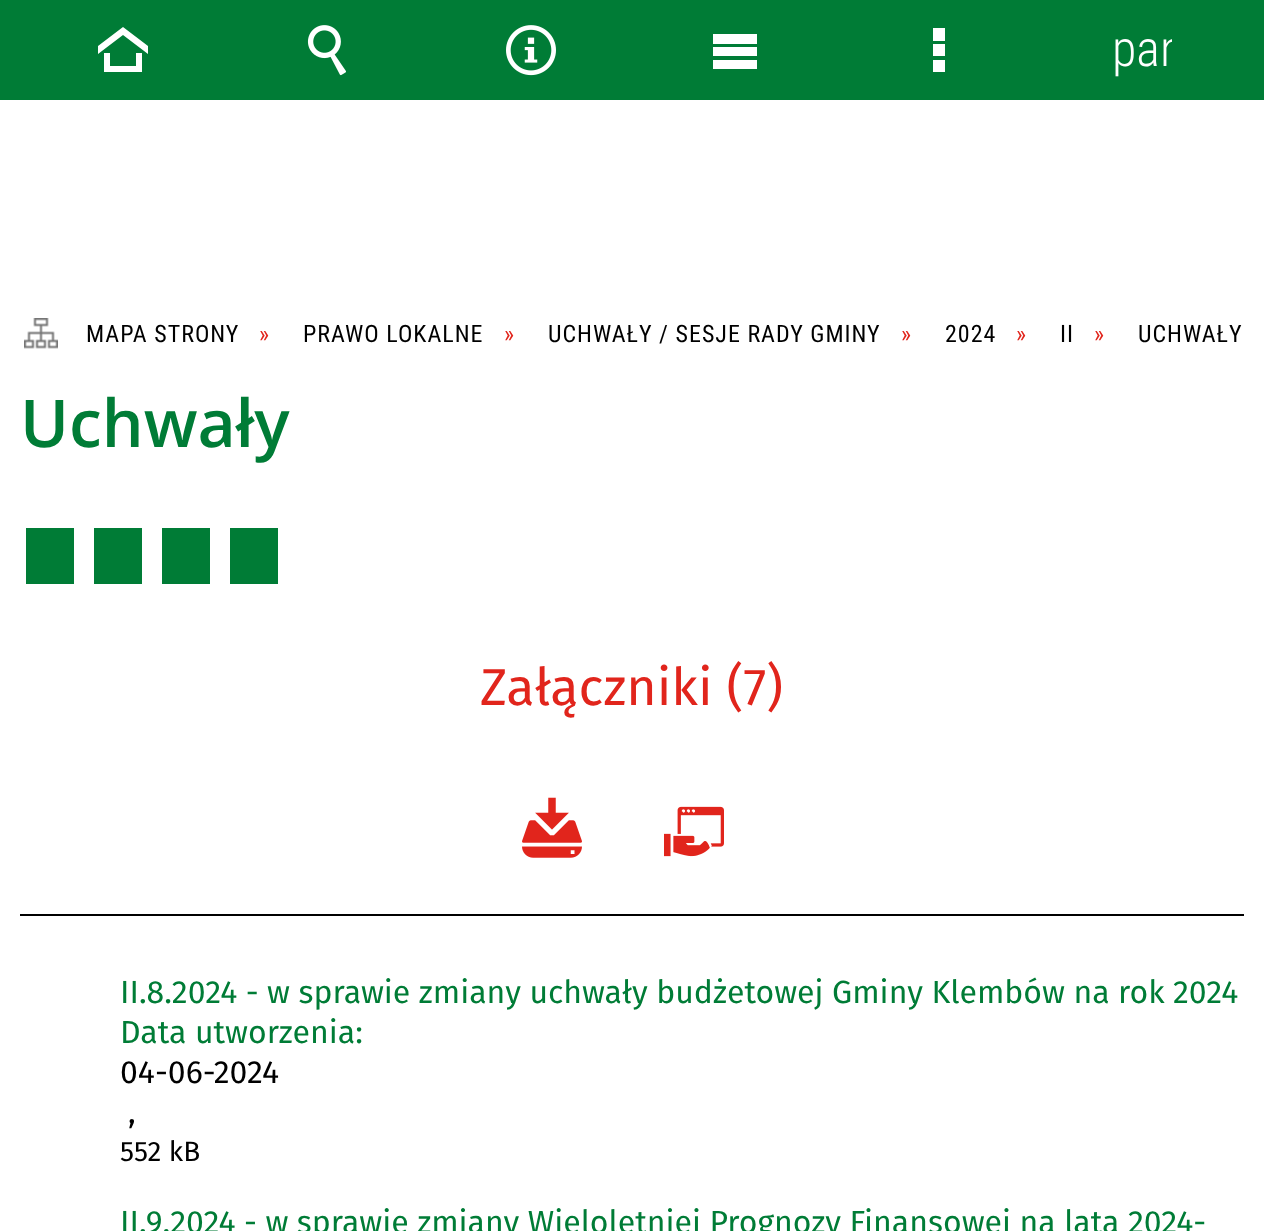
async function draw(canvas) {
  canvas.width = 1264;
  canvas.height = 1231;
  const ctx = canvas.getContext('2d');
  ctx.miterLimit = 4;
  ctx.fontKerning = 'normal';
  function label(s, x, y, font, color) {
    ctx.font = font;
    ctx.fillStyle = color;
    ctx.fillText(s, x, y);
  }
  function rect(x, y, w, h, color) {
    ctx.fillStyle = color;
    ctx.fillRect(x, y, w, h);
  }
  async function image(src, x, y, w, h) {
    const img = new Image();
    img.src = src;
    await img.decode();
    ctx.drawImage(img, x, y, w, h);
  }
  let path;

  rect(0, 0, 1264, 1231, '#fff');
  rect(0, 0, 1264, 100, '#007c36');
  ctx.fillStyle = '#fff';
  path = new Path2D('M142 53H136V66H110V53H104V72H142ZM148 54V46L123 27L98 46V54L123 35Z');
  ctx.fill(path);
  await image('assets/img1.png', 307, 25, 39, 51);
  await image('assets/img2.png', 506, 25, 50, 51);
  path = new Path2D('M713 34V44H757V34ZM713 47V56H757V47ZM713 60V69H757V60Z');
  ctx.fill(path);
  path = new Path2D('M933 28V41H945V28ZM933 44V56H945V44ZM933 60V72H945V60Z');
  ctx.fill(path);
  ctx.save();
  ctx.beginPath();
  ctx.rect(1112, 20, 60, 60);
  ctx.clip();
  label('pan', 1112, 66, '300 50px Roboto Condensed', '#fff');
  ctx.restore();
  await image('assets/img3.png', 24, 318, 34, 31);
  ctx.letterSpacing = '1px';
  label('MAPA STRONY', 86, 342, '24px Roboto Condensed', '#000');
  label('»', 259, 342, '24px Roboto Condensed', '#e1251c');
  label('PRAWO LOKALNE', 303, 342, '24px Roboto Condensed', '#000');
  label('»', 504, 342, '24px Roboto Condensed', '#e1251c');
  label('UCHWAŁY / SESJE RADY GMINY', 548, 342, '24px Roboto Condensed', '#000');
  label('»', 901, 342, '24px Roboto Condensed', '#e1251c');
  label('2024', 945, 342, '24px Roboto Condensed', '#000');
  label('»', 1016, 342, '24px Roboto Condensed', '#e1251c');
  label('II', 1060, 342, '24px Roboto Condensed', '#000');
  label('»', 1094, 342, '24px Roboto Condensed', '#e1251c');
  label('UCHWAŁY', 1138, 342, '24px Roboto Condensed', '#000');
  ctx.letterSpacing = '0px';
  label('Uchwały', 20, 447, '600 66px Open Sans', '#007c36');
  rect(26, 528, 48, 56, '#007c36');
  rect(94, 528, 48, 56, '#007c36');
  rect(162, 528, 48, 56, '#007c36');
  rect(230, 528, 48, 56, '#007c36');
  rect(20, 914, 1224, 2, '#000');
  label('Załączniki (7)', 480, 705, '52px Fira Sans', '#e1251c');
  await image('assets/img4.png', 522, 797, 60, 61);
  await image('assets/img5.png', 664, 806, 60, 51);
  label('II.8.2024 - w sprawie zmiany uchwały budżetowej Gminy Klembów na rok 2024', 120, 1003, '32px Fira Sans', '#007c36');
  label('Data utworzenia:', 120, 1043, '32px Fira Sans', '#007c36');
  label('04-06-2024', 120, 1083, '32px Fira Sans', '#000');
  label(',', 128, 1123, '32px Fira Sans', '#000');
  label('552 kB', 120, 1161, '28px Fira Sans', '#000');
  label('II.9.2024 - w sprawie zmiany Wieloletniej Prognozy Finansowej na lata 2024-', 120, 1233, '32px Fira Sans', '#007c36');
}

draw(document.querySelector('canvas'));
